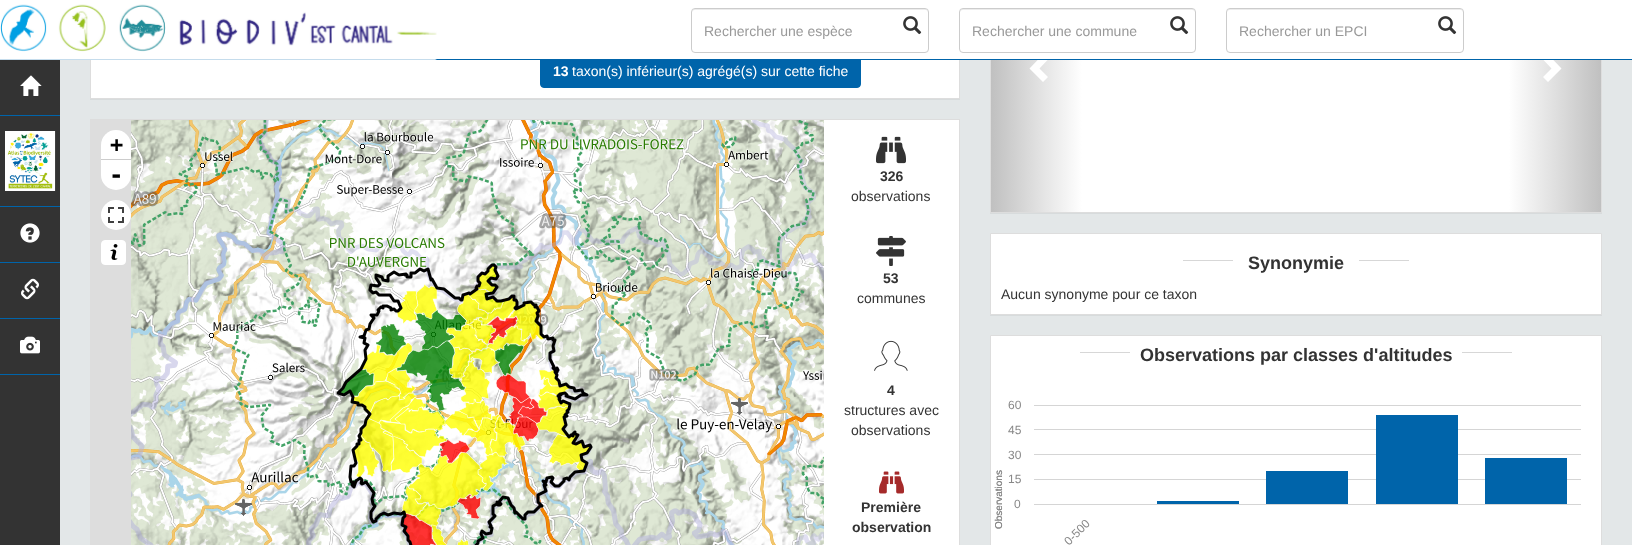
async function draw(canvas) {
  canvas.width = 1632;
  canvas.height = 545;
  const ctx = canvas.getContext('2d');
  ctx.miterLimit = 4;
  ctx.fontKerning = 'normal';
  function label(s, x, y, font, color) {
    ctx.font = font;
    ctx.fillStyle = color;
    ctx.fillText(s, x, y);
  }
  function rect(x, y, w, h, color) {
    ctx.fillStyle = color;
    ctx.fillRect(x, y, w, h);
  }
  async function image(src, x, y, w, h) {
    const img = new Image();
    img.src = src;
    await img.decode();
    ctx.drawImage(img, x, y, w, h);
  }
  let gradient, path;

  rect(0, 0, 1632, 545, '#e3e7e8');
  ctx.fillStyle = '#0000000d';
  ctx.filter = 'blur(0.5px)';
  ctx.beginPath();
  ctx.rect(90, -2, 870, 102);
  ctx.fill();
  ctx.filter = 'none';
  rect(91, 60, 868, 38, '#fff');
  ctx.strokeStyle = '#ddd';
  ctx.strokeRect(90.5, -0.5, 869, 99);
  ctx.fillStyle = '#0064aa';
  ctx.beginPath();
  ctx.roundRect(540.5, 54.5, 320, 33, 3.5);
  ctx.fill();
  ctx.strokeStyle = '#0064aa';
  ctx.stroke();
  ctx.fillStyle = '#0000000d';
  ctx.filter = 'blur(0.5px)';
  ctx.beginPath();
  ctx.rect(990, -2, 612, 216);
  ctx.fill();
  ctx.filter = 'none';
  rect(1082, 60, 427, 152, '#fff');
  ctx.strokeStyle = '#ddd';
  ctx.strokeRect(990.5, -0.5, 611, 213);
  gradient = ctx.createLinearGradient(991, 62, 1082, 62);
  gradient.addColorStop(0, '#c0c0c0');
  gradient.addColorStop(1, '#fff');
  ctx.fillStyle = gradient;
  ctx.fillRect(991, 60, 91, 152);
  ctx.fillStyle = '#fff';
  path = new Path2D('M1048 59.5L1039.5 68.5L1048 77L1043 82L1029.5 68.5L1043 54.5Z');
  ctx.fill(path);
  gradient = ctx.createLinearGradient(1509, 62, 1601, 62);
  gradient.addColorStop(0, '#fff');
  gradient.addColorStop(1, '#c0c0c0');
  ctx.fillStyle = gradient;
  ctx.fillRect(1509, 60, 92, 152);
  ctx.fillStyle = '#fff';
  path = new Path2D('M1561.5 68.5L1548 82L1543 77L1551.5 68.5L1543 59.5L1548 54.5Z');
  ctx.fill(path);
  rect(0, 0, 1632, 59, '#fff');
  rect(0, 59, 1632, 1, '#0064aa');
  await image('assets/img1.png', 0, 4, 437, 56);
  ctx.fillStyle = '#ececec';
  path = new Path2D('M695 10H926L928 11V13C928 11 927 9 925 9H695C693 9 692 11 692 13C692 11 693 10 695 10Z');
  ctx.fill(path);
  ctx.beginPath();
  ctx.roundRect(691.5, 8.5, 237, 44, 3.5);
  ctx.strokeStyle = '#ccc';
  ctx.stroke();
  label('Rechercher une espèce', 704, 36, '14px Liberation Sans', '#999');
  await image('assets/img2.png', 903, 16, 19, 19);
  ctx.fillStyle = '#ececec';
  path = new Path2D('M963 10H1192C1194 10 1195 11 1195 13C1195 11 1194 9 1192 9H963C961 9 960 11 960 13C960 11 961 10 963 10Z');
  ctx.fill(path);
  ctx.beginPath();
  ctx.roundRect(959.5, 8.5, 236, 44, 3.5);
  ctx.stroke();
  label('Rechercher une commune', 972, 36, '14px Liberation Sans', '#999');
  await image('assets/img2.png', 1170, 16, 19, 19);
  ctx.fillStyle = '#ececec';
  path = new Path2D('M1230 10H1461L1463 11V13C1463 11 1462 9 1460 9H1230C1228 9 1227 11 1227 13C1227 11 1228 10 1230 10Z');
  ctx.fill(path);
  ctx.beginPath();
  ctx.roundRect(1226.5, 8.5, 237, 44, 3.5);
  ctx.stroke();
  label('Rechercher un EPCI', 1239, 36, '14px Liberation Sans', '#999');
  await image('assets/img2.png', 1438, 16, 19, 19);
  rect(0, 60, 60, 485, '#333');
  rect(0, 115, 60, 1, '#0064aa');
  await image('assets/img3.png', 20, 75, 22, 21);
  rect(0, 206, 60, 1, '#0064aa');
  await image('assets/img4.png', 5, 131, 51, 60);
  rect(0, 262, 60, 1, '#0064aa');
  await image('assets/img5.png', 20, 223, 20, 20);
  rect(0, 318, 60, 1, '#0064aa');
  await image('assets/img6.png', 21, 278, 18, 22);
  rect(0, 374, 60, 1, '#0064aa');
  await image('assets/img7.png', 20, 336, 20, 18);
  label('13', 553, 76, 'bold 14px Liberation Sans', '#fff');
  label('taxon(s) inférieur(s) agrégé(s) sur cette fiche', 572, 76, '14px Liberation Sans', '#fff');
  rect(824, 120, 135, 425, '#fff');
  ctx.strokeStyle = '#ddd';
  ctx.strokeRect(90.5, 119.5, 869, 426);
  rect(91, 120, 40, 425, '#ddd');
  ctx.fillStyle = '#fff';
  ctx.beginPath();
  ctx.roundRect(101, 130, 30, 30, [15, 15, 0, 0]);
  ctx.fill();
  rect(101, 159, 30, 1, '#ccc');
  label('+', 110, 152, 'bold 22px DejaVu Sans Mono', '#000');
  ctx.fillStyle = '#fff';
  ctx.beginPath();
  ctx.roundRect(101, 160, 30, 30, [0, 0, 15, 15]);
  ctx.fill();
  label('-', 109, 183, 'bold 24px DejaVu Sans Mono', '#000');
  ctx.fillStyle = '#fff';
  ctx.beginPath();
  ctx.arc(116, 215, 15, 0, 2 * Math.PI);
  ctx.fill();
  await image('assets/img8.png', 108, 207, 16, 16);
  ctx.beginPath();
  ctx.roundRect(101.5, 240.5, 24, 24, 3.5);
  ctx.fill();
  ctx.strokeStyle = '#fff';
  ctx.stroke();
  await image('assets/img9.png', 110, 244, 8, 16);
  await image('assets/img10.png', 131, 120, 256, 26);
  await image('assets/img11.png', 387, 120, 256, 26);
  await image('assets/img12.png', 643, 120, 181, 26);
  await image('assets/img13.png', 131, 146, 256, 256);
  await image('assets/img14.png', 387, 146, 256, 256);
  await image('assets/img15.png', 643, 146, 181, 256);
  await image('assets/img16.png', 131, 402, 256, 143);
  await image('assets/img17.png', 387, 402, 256, 143);
  await image('assets/img18.png', 643, 402, 181, 143);
  await image('assets/img19.png', 336, 263, 257, 282);
  await image('assets/img20.png', 876, 136, 30, 28);
  label('326', 880, 181, 'bold 14px Liberation Sans', '#333');
  label('observations', 851, 201, '14px Liberation Sans', '#333');
  await image('assets/img21.png', 876, 236, 30, 30);
  label('53', 883, 283, 'bold 14px Liberation Sans', '#333');
  label('communes', 857, 303, '14px Liberation Sans', '#333');
  await image('assets/img22.png', 874, 340, 34, 31);
  label('4', 887, 395, 'bold 14px Liberation Sans', '#333');
  label('structures avec', 844, 415, '14px Liberation Sans', '#333');
  label('observations', 851, 435, '14px Liberation Sans', '#333');
  await image('assets/img23.png', 879, 471, 25, 23);
  label('Première', 861, 512, 'bold 14px Liberation Sans', '#333');
  label('observation', 852, 532, 'bold 14px Liberation Sans', '#333');
  ctx.fillStyle = '#0000000d';
  ctx.filter = 'blur(0.5px)';
  ctx.beginPath();
  ctx.rect(990, 234, 612, 82);
  ctx.fill();
  ctx.filter = 'none';
  ctx.fillStyle = '#fff';
  ctx.beginPath();
  ctx.rect(990.5, 233.5, 611, 81);
  ctx.fill();
  ctx.strokeStyle = '#ddd';
  ctx.stroke();
  rect(1183, 260, 50, 1, '#d7d7d7');
  label('Synonymie', 1248, 269, 'bold 18px Liberation Sans', '#333');
  rect(1359, 260, 50, 1, '#d7d7d7');
  label('Aucun synonyme pour ce taxon', 1001, 299, '14px Liberation Sans', '#333');
  ctx.fillStyle = '#fff';
  ctx.beginPath();
  ctx.rect(990.5, 335.5, 611, 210);
  ctx.fill();
  ctx.stroke();
  rect(1080, 352, 50, 1, '#d7d7d7');
  label('Observations par classes d\'altitudes', 1140, 361, 'bold 18px Liberation Sans', '#333');
  rect(1462, 352, 50, 1, '#d7d7d7');
  label('60', 1008, 409, '12px Liberation Sans', '#888');
  rect(1034, 405, 547, 1, '#d5d5d5');
  label('45', 1008, 434, '12px Liberation Sans', '#888');
  rect(1034, 429, 547, 1, '#d5d5d5');
  label('30', 1008, 459, '12px Liberation Sans', '#888');
  rect(1034, 454, 547, 1, '#d5d5d5');
  rect(1034, 479, 547, 1, '#d5d5d5');
  rect(1376, 415, 82, 89, '#0064aa');
  ctx.font = '10px Liberation Sans';
  ctx.fillStyle = '#888';
  ctx.save();
  ctx.translate(1002, 529);
  ctx.rotate(-90 * Math.PI / 180);
  ctx.fillText('Observations', 0, 0);
  ctx.restore();
  ctx.save();
  ctx.translate(1002, 529);
  ctx.rotate(-90 * Math.PI / 180);
  ctx.fillText('Observations', 0, 0);
  ctx.restore();
  label('15', 1008, 483, '12px Liberation Sans', '#888');
  rect(1266, 471, 82, 33, '#0064aa');
  rect(1485, 458, 82, 46, '#0064aa');
  label('0', 1014, 508, '12px Liberation Sans', '#888');
  rect(1034, 504, 547, 1, '#d5d5d5');
  ctx.fillStyle = '#888';
  ctx.save();
  ctx.translate(1069, 546);
  ctx.rotate(-45 * Math.PI / 180);
  ctx.fillText('0-500', 0, 0);
  ctx.restore();
  rect(1157, 501, 82, 3, '#0064aa');
}

draw(document.querySelector('canvas'));
